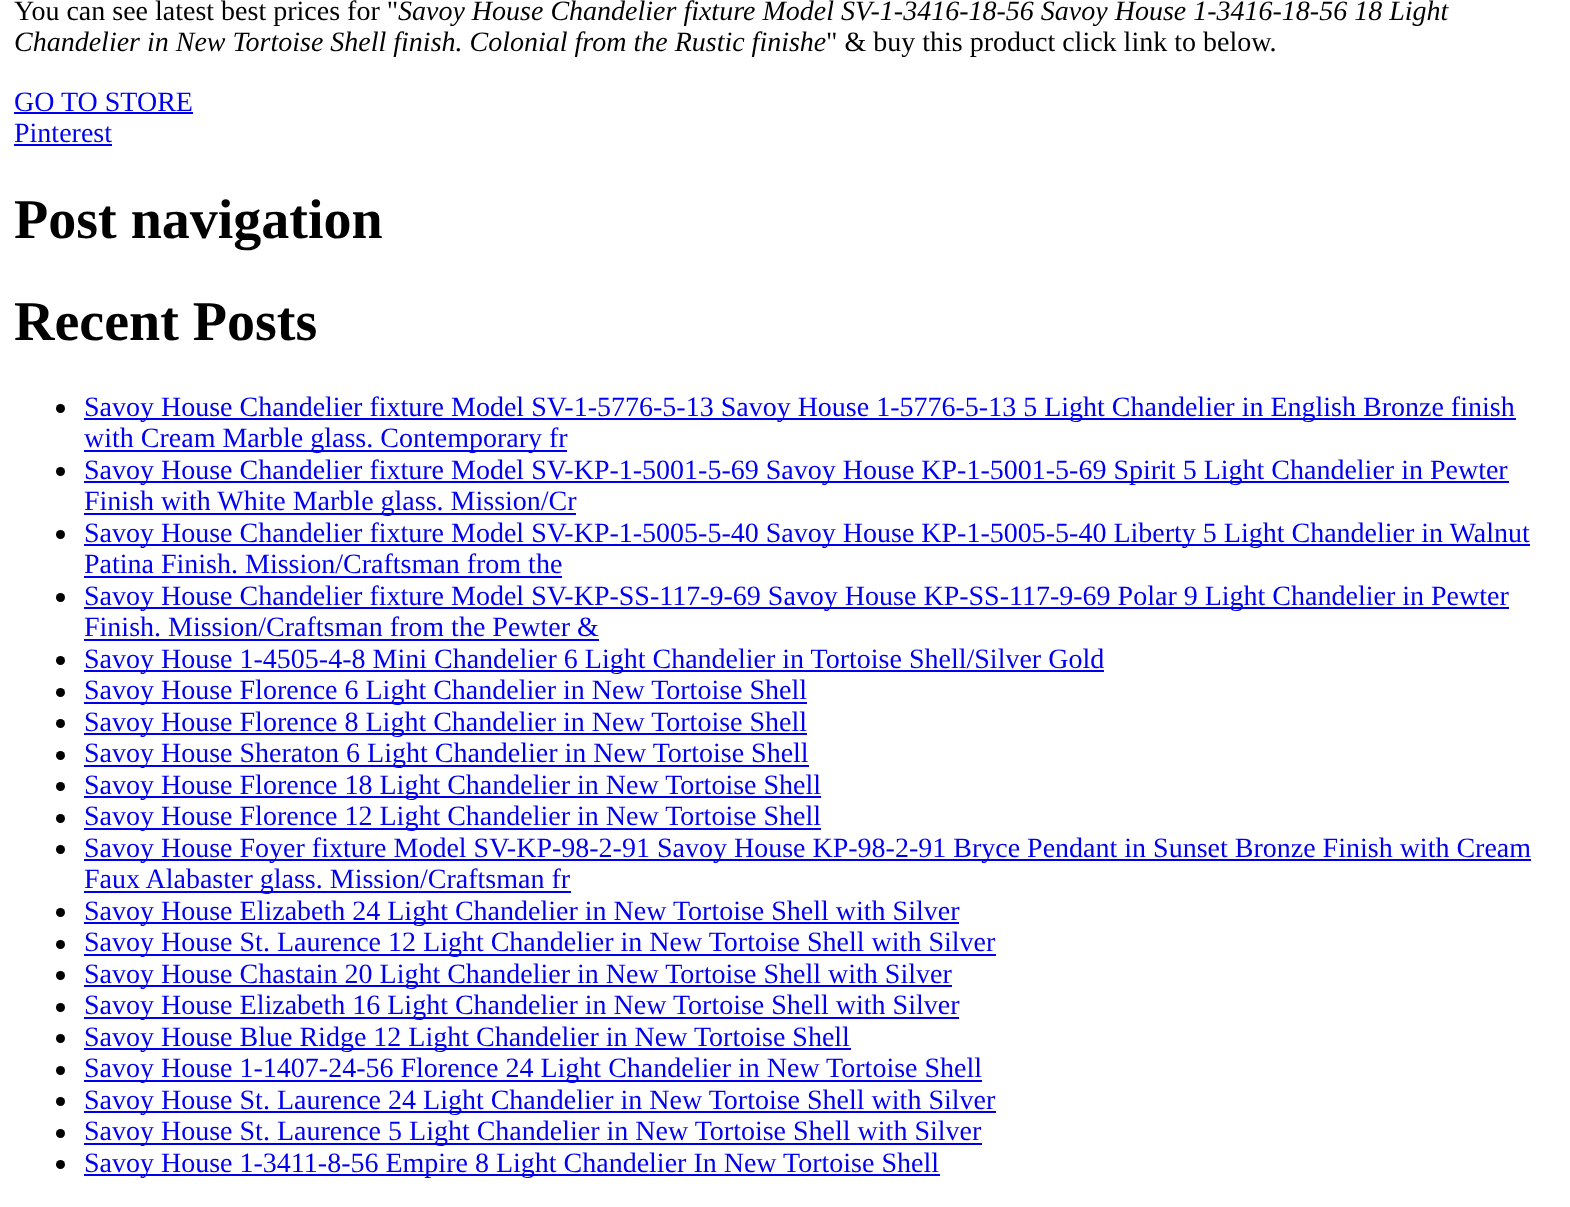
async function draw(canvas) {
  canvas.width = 1570;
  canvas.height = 1207;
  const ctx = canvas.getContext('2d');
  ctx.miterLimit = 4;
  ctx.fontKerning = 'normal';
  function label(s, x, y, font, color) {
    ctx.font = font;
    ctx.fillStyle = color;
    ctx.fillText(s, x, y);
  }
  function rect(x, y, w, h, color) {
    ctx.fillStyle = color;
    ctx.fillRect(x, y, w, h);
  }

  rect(0, 0, 1570, 1207, '#fff');
  label('You can see latest best prices for "', 14, 20, '28px Liberation Serif', '#000');
  label('Savoy House Chandelier fixture Model SV-1-3416-18-56 Savoy House 1-3416-18-56 18 Light', 398, 20, 'italic 28px Liberation Serif', '#000');
  label('Chandelier in New Tortoise Shell finish. Colonial from the Rustic finishe', 14, 51, 'italic 28px Liberation Serif', '#000');
  label('" & buy this product click link to below.', 826, 51, '28px Liberation Serif', '#000');
  label('GO TO STORE', 14, 111, '28px Liberation Serif', '#00e');
  rect(14, 112, 179, 2, '#00e');
  label('Pinterest', 14, 142, '28px Liberation Serif', '#00e');
  rect(14, 144, 98, 2, '#00e');
  label('Post navigation', 14, 238, 'bold 56px Liberation Serif', '#000');
  label('Recent Posts', 14, 340, 'bold 56px Liberation Serif', '#000');
  ctx.beginPath();
  ctx.arc(60.5, 408.5, 4.5, 0, 2 * Math.PI);
  ctx.fill();
  rect(84, 418, 1432, 2, '#00e');
  label('Savoy House Chandelier fixture Model SV-1-5776-5-13 Savoy House 1-5776-5-13 5 Light Chandelier in English Bronze finish', 84, 416, '28px Liberation Serif', '#00e');
  rect(84, 450, 483, 2, '#00e');
  label('with Cream Marble glass. Contemporary fr', 84, 447, '28px Liberation Serif', '#00e');
  ctx.fillStyle = '#000';
  ctx.beginPath();
  ctx.arc(60.5, 471.5, 4.5, 0, 2 * Math.PI);
  ctx.fill();
  rect(84, 481, 1425, 2, '#00e');
  label('Savoy House Chandelier fixture Model SV-KP-1-5001-5-69 Savoy House KP-1-5001-5-69 Spirit 5 Light Chandelier in Pewter', 84, 479, '28px Liberation Serif', '#00e');
  rect(84, 513, 492, 2, '#00e');
  label('Finish with White Marble glass. Mission/Cr', 84, 510, '28px Liberation Serif', '#00e');
  ctx.fillStyle = '#000';
  ctx.beginPath();
  ctx.arc(60.5, 534.5, 4.5, 0, 2 * Math.PI);
  ctx.fill();
  rect(84, 544, 1446, 2, '#00e');
  label('Savoy House Chandelier fixture Model SV-KP-1-5005-5-40 Savoy House KP-1-5005-5-40 Liberty 5 Light Chandelier in Walnut', 84, 542, '28px Liberation Serif', '#00e');
  label('Patina Finish. Mission/Craftsman from the', 84, 573, '28px Liberation Serif', '#00e');
  rect(84, 576, 478, 2, '#00e');
  ctx.fillStyle = '#000';
  ctx.beginPath();
  ctx.arc(60.5, 597.5, 4.5, 0, 2 * Math.PI);
  ctx.fill();
  rect(84, 607, 1425, 2, '#00e');
  label('Savoy House Chandelier fixture Model SV-KP-SS-117-9-69 Savoy House KP-SS-117-9-69 Polar 9 Light Chandelier in Pewter', 84, 605, '28px Liberation Serif', '#00e');
  label('Finish. Mission/Craftsman from the Pewter &', 84, 636, '28px Liberation Serif', '#00e');
  rect(84, 639, 515, 2, '#00e');
  ctx.fillStyle = '#000';
  ctx.beginPath();
  ctx.arc(60.5, 660.5, 4.5, 0, 2 * Math.PI);
  ctx.fill();
  rect(84, 670, 1020, 2, '#00e');
  label('Savoy House 1-4505-4-8 Mini Chandelier 6 Light Chandelier in Tortoise Shell/Silver Gold', 84, 668, '28px Liberation Serif', '#00e');
  ctx.fillStyle = '#000';
  ctx.beginPath();
  ctx.arc(60.5, 692.5, 4.5, 0, 2 * Math.PI);
  ctx.fill();
  rect(84, 702, 723, 2, '#00e');
  label('Savoy House Florence 6 Light Chandelier in New Tortoise Shell', 84, 699, '28px Liberation Serif', '#00e');
  ctx.fillStyle = '#000';
  ctx.beginPath();
  ctx.arc(60.5, 723.5, 4.5, 0, 2 * Math.PI);
  ctx.fill();
  rect(84, 733, 723, 2, '#00e');
  label('Savoy House Florence 8 Light Chandelier in New Tortoise Shell', 84, 731, '28px Liberation Serif', '#00e');
  ctx.fillStyle = '#000';
  ctx.beginPath();
  ctx.arc(60.5, 755.5, 4.5, 0, 2 * Math.PI);
  ctx.fill();
  rect(84, 765, 725, 2, '#00e');
  label('Savoy House Sheraton 6 Light Chandelier in New Tortoise Shell', 84, 762, '28px Liberation Serif', '#00e');
  ctx.fillStyle = '#000';
  ctx.beginPath();
  ctx.arc(60.5, 786.5, 4.5, 0, 2 * Math.PI);
  ctx.fill();
  rect(84, 796, 737, 2, '#00e');
  label('Savoy House Florence 18 Light Chandelier in New Tortoise Shell', 84, 794, '28px Liberation Serif', '#00e');
  ctx.fillStyle = '#000';
  ctx.beginPath();
  ctx.arc(60.5, 818.5, 4.5, 0, 2 * Math.PI);
  ctx.fill();
  rect(84, 828, 737, 2, '#00e');
  label('Savoy House Florence 12 Light Chandelier in New Tortoise Shell', 84, 825, '28px Liberation Serif', '#00e');
  ctx.fillStyle = '#000';
  ctx.beginPath();
  ctx.arc(60.5, 849.5, 4.5, 0, 2 * Math.PI);
  ctx.fill();
  rect(84, 859, 1447, 2, '#00e');
  label('Savoy House Foyer fixture Model SV-KP-98-2-91 Savoy House KP-98-2-91 Bryce Pendant in Sunset Bronze Finish with Cream', 84, 857, '28px Liberation Serif', '#00e');
  rect(84, 891, 487, 2, '#00e');
  label('Faux Alabaster glass. Mission/Craftsman fr', 84, 888, '28px Liberation Serif', '#00e');
  ctx.fillStyle = '#000';
  ctx.beginPath();
  ctx.arc(60.5, 912.5, 4.5, 0, 2 * Math.PI);
  ctx.fill();
  rect(84, 922, 875, 2, '#00e');
  label('Savoy House Elizabeth 24 Light Chandelier in New Tortoise Shell with Silver', 84, 920, '28px Liberation Serif', '#00e');
  ctx.fillStyle = '#000';
  ctx.beginPath();
  ctx.arc(60.5, 944.5, 4.5, 0, 2 * Math.PI);
  ctx.fill();
  rect(84, 954, 912, 2, '#00e');
  label('Savoy House St. Laurence 12 Light Chandelier in New Tortoise Shell with Silver', 84, 951, '28px Liberation Serif', '#00e');
  ctx.fillStyle = '#000';
  ctx.beginPath();
  ctx.arc(60.5, 975.5, 4.5, 0, 2 * Math.PI);
  ctx.fill();
  rect(84, 985, 868, 2, '#00e');
  label('Savoy House Chastain 20 Light Chandelier in New Tortoise Shell with Silver', 84, 983, '28px Liberation Serif', '#00e');
  ctx.fillStyle = '#000';
  ctx.beginPath();
  ctx.arc(60.5, 1007.5, 4.5, 0, 2 * Math.PI);
  ctx.fill();
  rect(84, 1017, 875, 2, '#00e');
  label('Savoy House Elizabeth 16 Light Chandelier in New Tortoise Shell with Silver', 84, 1014, '28px Liberation Serif', '#00e');
  ctx.fillStyle = '#000';
  ctx.beginPath();
  ctx.arc(60.5, 1038.5, 4.5, 0, 2 * Math.PI);
  ctx.fill();
  rect(84, 1048, 767, 2, '#00e');
  label('Savoy House Blue Ridge 12 Light Chandelier in New Tortoise Shell', 84, 1046, '28px Liberation Serif', '#00e');
  ctx.fillStyle = '#000';
  ctx.beginPath();
  ctx.arc(60.5, 1070.5, 4.5, 0, 2 * Math.PI);
  ctx.fill();
  rect(84, 1080, 898, 2, '#00e');
  label('Savoy House 1-1407-24-56 Florence 24 Light Chandelier in New Tortoise Shell', 84, 1077, '28px Liberation Serif', '#00e');
  ctx.fillStyle = '#000';
  ctx.beginPath();
  ctx.arc(60.5, 1101.5, 4.5, 0, 2 * Math.PI);
  ctx.fill();
  rect(84, 1111, 912, 2, '#00e');
  label('Savoy House St. Laurence 24 Light Chandelier in New Tortoise Shell with Silver', 84, 1109, '28px Liberation Serif', '#00e');
  ctx.fillStyle = '#000';
  ctx.beginPath();
  ctx.arc(60.5, 1133.5, 4.5, 0, 2 * Math.PI);
  ctx.fill();
  rect(84, 1143, 898, 2, '#00e');
  label('Savoy House St. Laurence 5 Light Chandelier in New Tortoise Shell with Silver', 84, 1140, '28px Liberation Serif', '#00e');
  ctx.fillStyle = '#000';
  ctx.beginPath();
  ctx.arc(60.5, 1164.5, 4.5, 0, 2 * Math.PI);
  ctx.fill();
  rect(84, 1174, 856, 2, '#00e');
  label('Savoy House 1-3411-8-56 Empire 8 Light Chandelier In New Tortoise Shell', 84, 1172, '28px Liberation Serif', '#00e');
}

draw(document.querySelector('canvas'));
